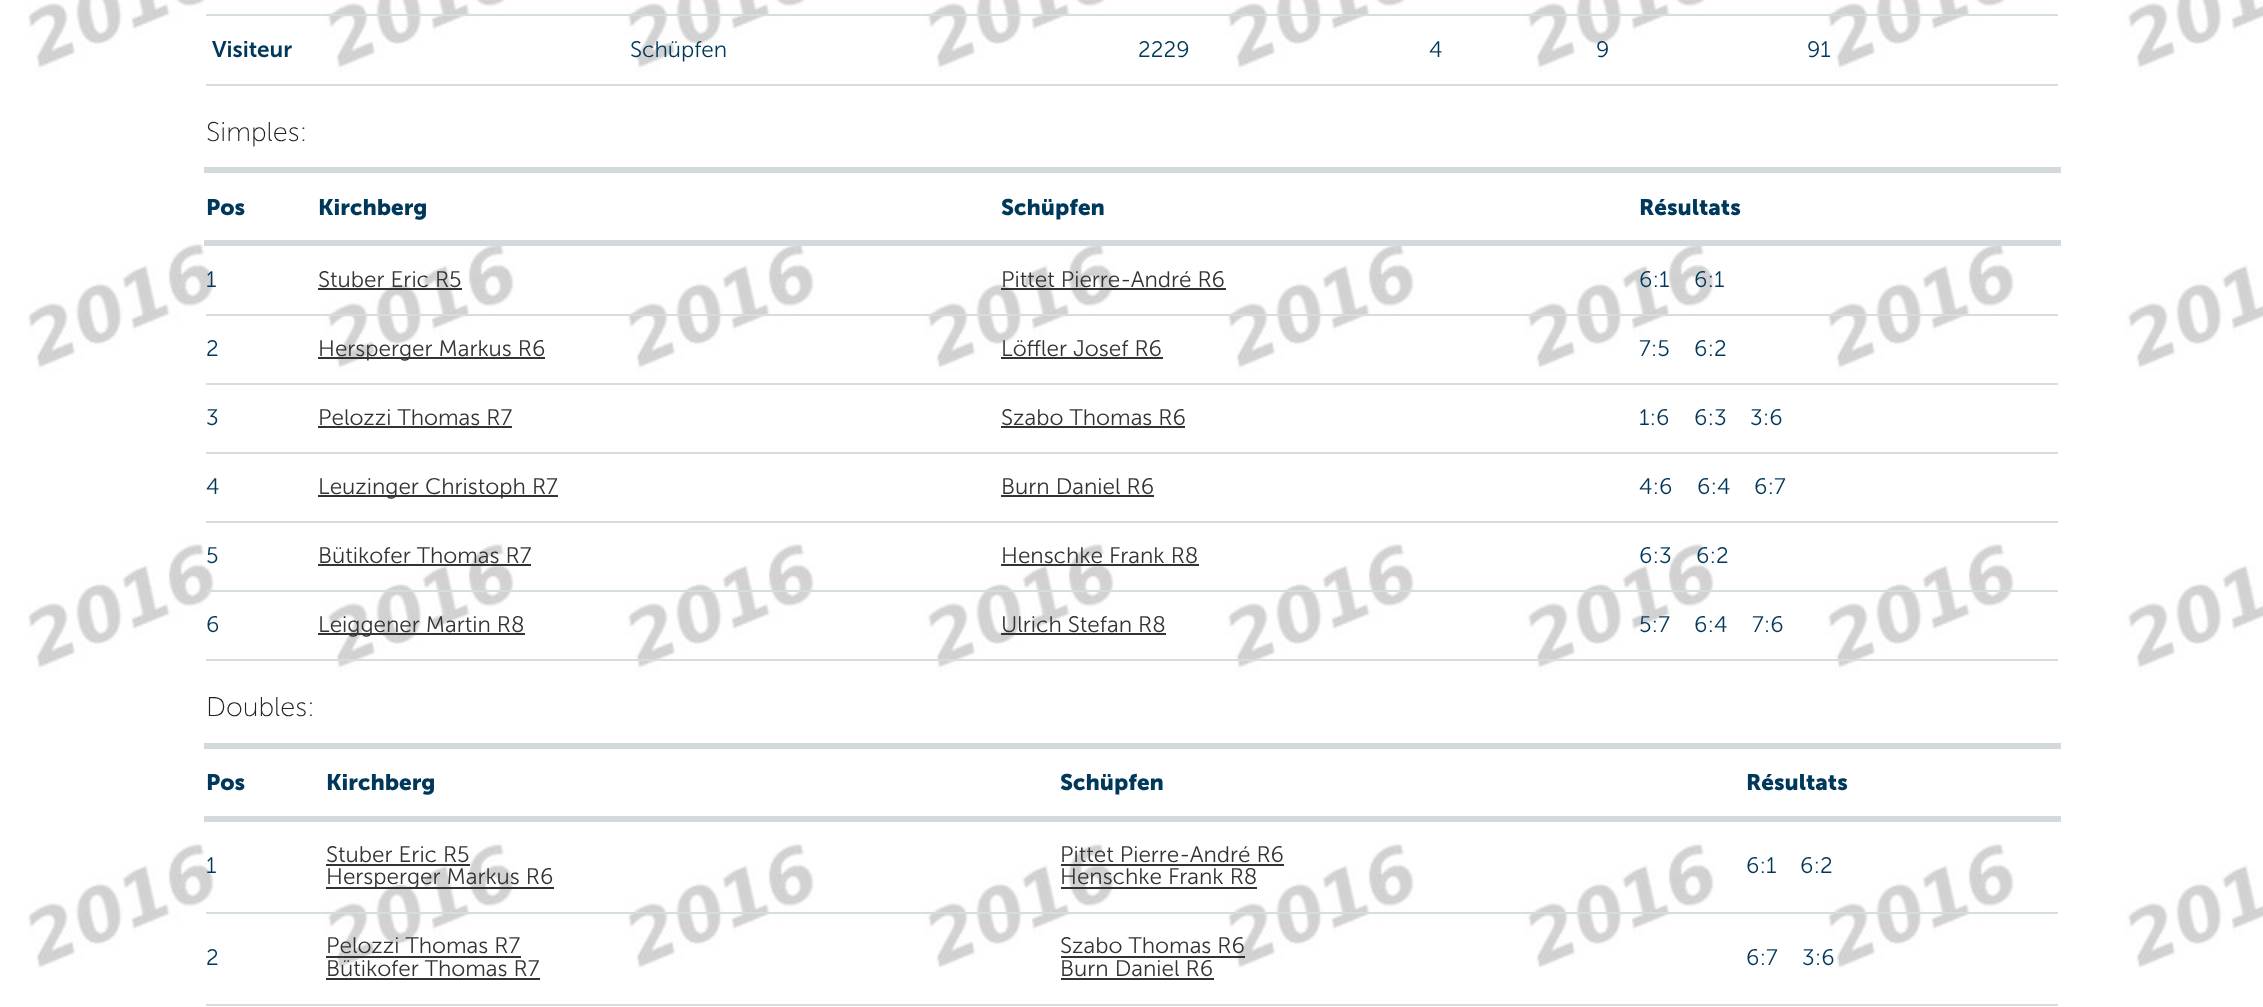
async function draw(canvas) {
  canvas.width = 2263;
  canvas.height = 1007;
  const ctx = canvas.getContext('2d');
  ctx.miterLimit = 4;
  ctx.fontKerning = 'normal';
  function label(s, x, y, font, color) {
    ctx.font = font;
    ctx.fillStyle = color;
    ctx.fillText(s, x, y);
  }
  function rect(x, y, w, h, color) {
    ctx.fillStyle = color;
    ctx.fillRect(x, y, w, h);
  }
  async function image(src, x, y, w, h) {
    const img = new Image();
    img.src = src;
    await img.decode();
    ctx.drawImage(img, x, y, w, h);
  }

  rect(0, 0, 2263, 1007, '#fff');
  await image('assets/img1.png', 28, 0, 2235, 968);
  rect(206, 14, 1852, 2, '#d5dde0');
  label('Visiteur', 212, 57, '600 22.5px Museo Sans', '#00385b');
  label('Schüpfen', 630, 57, '300 22.5px Museo Sans', '#00385b');
  label('2229', 1138, 57, '300 22.5px Museo Sans', '#00385b');
  label('4', 1429, 57, '300 22.5px Museo Sans', '#00385b');
  label('9', 1596, 57, '300 22.5px Museo Sans', '#00385b');
  rect(206, 84, 1852, 2, '#d5dde0');
  label('91', 1807, 57, '300 22.5px Museo Sans', '#00385b');
  label('Simples:', 206, 141, '200 27px Museo Sans', '#222');
  rect(204, 167, 1857, 6, '#d2dadd');
  rect(204, 240, 1857, 6, '#d2dadd');
  label('Pos', 206, 215, 'bold 22.5px Museo Sans', '#00385b');
  label('Kirchberg', 318, 215, 'bold 22.5px Museo Sans', '#00385b');
  label('Schüpfen', 1001, 215, 'bold 22.5px Museo Sans', '#00385b');
  label('Résultats', 1639, 215, 'bold 22.5px Museo Sans', '#00385b');
  label('1', 206, 287, '300 22.5px Museo Sans', '#00385b');
  label('Stuber Eric R5', 318, 287, '300 22.5px Museo Sans', '#333');
  rect(318, 288, 144, 2, '#333');
  label('Pittet Pierre-André R6', 1001, 287, '300 22.5px Museo Sans', '#333');
  rect(1001, 288, 225, 2, '#333');
  rect(206, 314, 1852, 2, '#d5dde0');
  label('6:1', 1639, 287, '300 22.5px Museo Sans', '#00385b');
  label('6:1', 1694, 287, '300 22.5px Museo Sans', '#00385b');
  label('2', 206, 356, '300 22.5px Museo Sans', '#00385b');
  rect(318, 357, 227, 2, '#333');
  label('Hersperger Markus R6', 318, 356, '300 22.5px Museo Sans', '#333');
  label('Löffler Josef R6', 1001, 356, '300 22.5px Museo Sans', '#333');
  rect(1001, 357, 162, 2, '#333');
  rect(206, 383, 1852, 2, '#d5dde0');
  label('7:5', 1639, 356, '300 22.5px Museo Sans', '#00385b');
  label('6:2', 1694, 356, '300 22.5px Museo Sans', '#00385b');
  label('3', 206, 425, '300 22.5px Museo Sans', '#00385b');
  label('Pelozzi Thomas R7', 318, 425, '300 22.5px Museo Sans', '#333');
  rect(318, 426, 194, 2, '#333');
  label('Szabo Thomas R6', 1001, 425, '300 22.5px Museo Sans', '#333');
  rect(1001, 426, 184, 2, '#333');
  rect(206, 452, 1852, 2, '#d5dde0');
  label('1:6', 1639, 425, '300 22.5px Museo Sans', '#00385b');
  label('6:3', 1694, 425, '300 22.5px Museo Sans', '#00385b');
  label('3:6', 1750, 425, '300 22.5px Museo Sans', '#00385b');
  label('4', 206, 494, '300 22.5px Museo Sans', '#00385b');
  rect(318, 495, 240, 2, '#333');
  label('Leuzinger Christoph R7', 318, 494, '300 22.5px Museo Sans', '#333');
  label('Burn Daniel R6', 1001, 494, '300 22.5px Museo Sans', '#333');
  rect(1001, 495, 153, 2, '#333');
  rect(206, 521, 1852, 2, '#d5dde0');
  label('4:6', 1639, 494, '300 22.5px Museo Sans', '#00385b');
  label('6:4', 1697, 494, '300 22.5px Museo Sans', '#00385b');
  label('6:7', 1754, 494, '300 22.5px Museo Sans', '#00385b');
  label('5', 206, 563, '300 22.5px Museo Sans', '#00385b');
  label('Bütikofer Thomas R7', 318, 563, '300 22.5px Museo Sans', '#333');
  rect(318, 564, 213, 2, '#333');
  label('Henschke Frank R8', 1001, 563, '300 22.5px Museo Sans', '#333');
  rect(1001, 564, 198, 2, '#333');
  rect(206, 590, 1852, 2, '#d5dde0');
  label('6:3', 1639, 563, '300 22.5px Museo Sans', '#00385b');
  label('6:2', 1696, 563, '300 22.5px Museo Sans', '#00385b');
  label('6', 206, 632, '300 22.5px Museo Sans', '#00385b');
  rect(318, 633, 207, 2, '#333');
  label('Leiggener Martin R8', 318, 632, '300 22.5px Museo Sans', '#333');
  label('Ulrich Stefan R8', 1001, 632, '300 22.5px Museo Sans', '#333');
  rect(1001, 633, 165, 2, '#333');
  rect(206, 659, 1852, 2, '#d5dde0');
  label('5:7', 1639, 632, '300 22.5px Museo Sans', '#00385b');
  label('6:4', 1694, 632, '300 22.5px Museo Sans', '#00385b');
  label('7:6', 1752, 632, '300 22.5px Museo Sans', '#00385b');
  label('Doubles:', 206, 716, '200 27px Museo Sans', '#222');
  rect(204, 743, 1857, 6, '#d2dadd');
  rect(204, 816, 1857, 6, '#d2dadd');
  label('Pos', 206, 790, 'bold 22.5px Museo Sans', '#00385b');
  label('Kirchberg', 326, 790, 'bold 22.5px Museo Sans', '#00385b');
  label('Schüpfen', 1060, 790, 'bold 22.5px Museo Sans', '#00385b');
  label('Résultats', 1746, 790, 'bold 22.5px Museo Sans', '#00385b');
  label('1', 206, 873, '300 22.5px Museo Sans', '#00385b');
  label('Stuber Eric R5', 326, 862, '300 22.5px Museo Sans', '#333');
  rect(326, 864, 144, 2, '#333');
  rect(326, 887, 228, 2, '#333');
  label('Hersperger Markus R6', 326, 884, '300 22.5px Museo Sans', '#333');
  label('Pittet Pierre-André R6', 1060, 862, '300 22.5px Museo Sans', '#333');
  rect(1061, 864, 223, 2, '#333');
  label('Henschke Frank R8', 1060, 884, '300 22.5px Museo Sans', '#333');
  rect(1061, 887, 196, 2, '#333');
  rect(206, 912, 1852, 2, '#d5dde0');
  label('6:1', 1746, 873, '300 22.5px Museo Sans', '#00385b');
  label('6:2', 1800, 873, '300 22.5px Museo Sans', '#00385b');
  label('2', 206, 965, '300 22.5px Museo Sans', '#00385b');
  label('Pelozzi Thomas R7', 326, 953, '300 22.5px Museo Sans', '#333');
  rect(326, 956, 195, 2, '#333');
  label('Bütikofer Thomas R7', 326, 976, '300 22.5px Museo Sans', '#333');
  rect(326, 978, 214, 2, '#333');
  label('Szabo Thomas R6', 1060, 953, '300 22.5px Museo Sans', '#333');
  rect(1061, 956, 184, 2, '#333');
  label('Burn Daniel R6', 1060, 976, '300 22.5px Museo Sans', '#333');
  rect(1061, 978, 153, 2, '#333');
  rect(206, 1004, 1852, 2, '#d5dde0');
  label('6:7', 1746, 965, '300 22.5px Museo Sans', '#00385b');
  label('3:6', 1802, 965, '300 22.5px Museo Sans', '#00385b');
}

draw(document.querySelector('canvas'));
